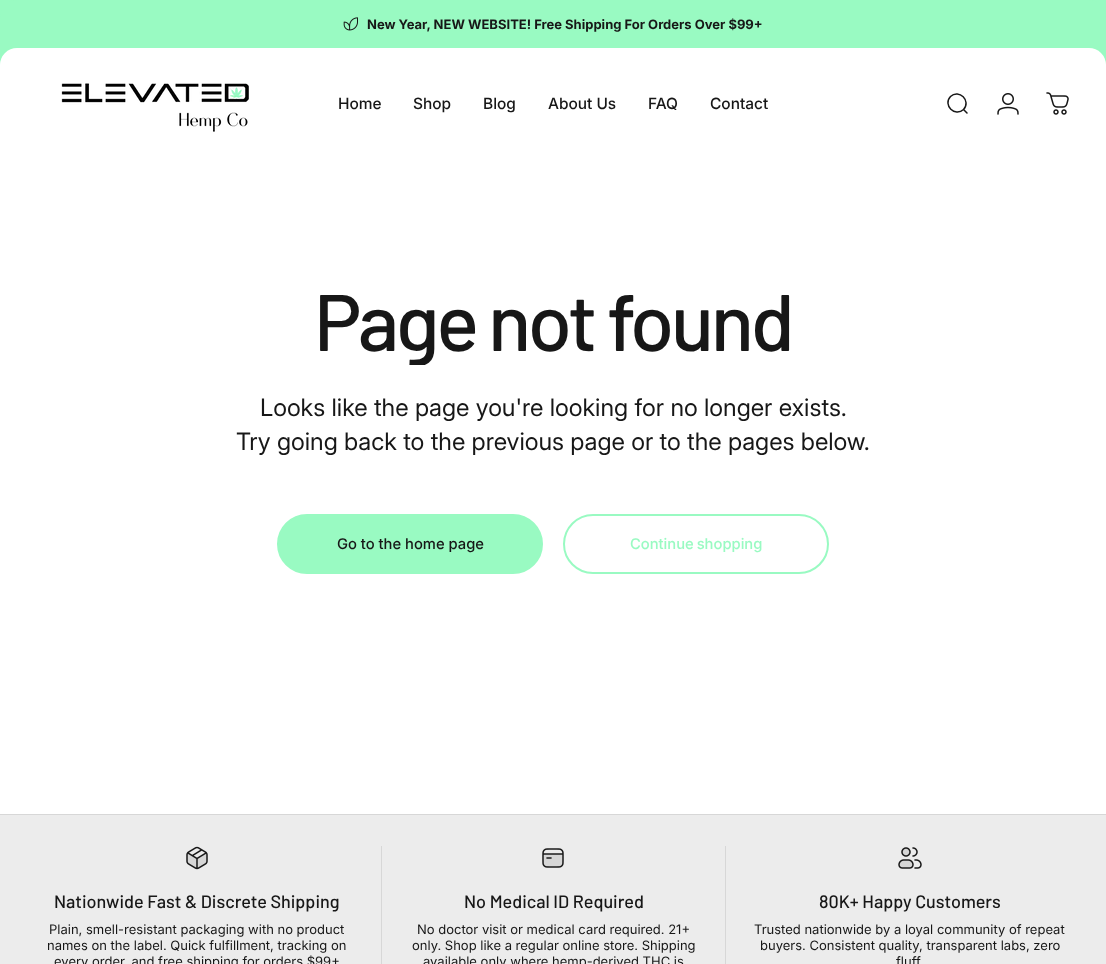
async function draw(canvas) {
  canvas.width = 1106;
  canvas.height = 964;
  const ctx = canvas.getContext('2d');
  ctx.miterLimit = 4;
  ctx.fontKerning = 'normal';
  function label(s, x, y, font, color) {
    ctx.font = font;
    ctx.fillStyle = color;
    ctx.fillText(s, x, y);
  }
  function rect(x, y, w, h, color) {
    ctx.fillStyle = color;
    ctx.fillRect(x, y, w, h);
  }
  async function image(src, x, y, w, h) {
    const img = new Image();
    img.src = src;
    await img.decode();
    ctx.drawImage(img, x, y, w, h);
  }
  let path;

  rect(0, 0, 1106, 964, '#fff');
  rect(0, 0, 1106, 17, '#99fac2');
  ctx.beginPath();
  ctx.roundRect(0, 0, 1106, 65, [17, 17, 0, 0]);
  ctx.fill();
  await image('assets/img1.png', 343, 17, 15, 14);
  label('New Year, NEW WEBSITE! Free Shipping For Orders Over $99+', 367, 29, 'bold 13px Inter', '#171717');
  ctx.fillStyle = '#fff';
  ctx.beginPath();
  ctx.roundRect(0, 48, 1106, 111, [17, 17, 0, 0]);
  ctx.fill();
  await image('assets/img2.png', 61, 83, 188, 49);
  label('Home', 338, 109, '500 15.5px "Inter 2"', '#171717');
  label('Shop', 413, 109, '500 15.5px "Inter 2"', '#171717');
  label('Blog', 483, 109, '500 15.5px "Inter 2"', '#171717');
  label('About Us', 548, 109, '500 15.5px "Inter 2"', '#171717');
  label('FAQ', 648, 109, '500 15.5px "Inter 2"', '#171717');
  label('Contact', 710, 109, '500 15.5px "Inter 2"', '#171717');
  path = new Path2D('M967 113L963.5 109.5M963.5 109.5C971.5 101 959 88.5 950.5 96.5C942.5 105 955 117.5 963.5 109.5Z');
  ctx.strokeStyle = '#171717';
  ctx.lineWidth = 1.5;
  ctx.lineCap = 'round';
  ctx.stroke(path);
  await image('assets/img3.png', 997, 93, 22, 22);
  await image('assets/img4.png', 1046, 92, 23, 23);
  ctx.save();
  ctx.beginPath();
  ctx.rect(310, 273, 170, 92);
  ctx.clip();
  ctx.letterSpacing = '-3.25px';
  label('Page', 314, 351, '500 80px Barlow', '#171717');
  ctx.restore();
  ctx.letterSpacing = '-3.25px';
  label('not found', 488, 351, '500 80px Barlow', '#171717');
  ctx.letterSpacing = '0px';
  label('Looks like the page you\'re looking for no longer exists.', 260, 416, '24px "Inter 2"', '#171717');
  label('Try going back to the previous page or to the pages below.', 236, 450, '24px "Inter 2"', '#171717');
  ctx.fillStyle = '#99fac2';
  ctx.beginPath();
  ctx.roundRect(278, 515, 264, 58, 29);
  ctx.fill();
  ctx.strokeStyle = '#99fac2';
  ctx.lineWidth = 2;
  ctx.stroke();
  label('Go to the home page', 337, 549, '500 14.75px Inter', '#171717');
  ctx.beginPath();
  ctx.roundRect(564, 515, 264, 58, 29);
  ctx.stroke();
  ctx.wordSpacing = '-1px';
  label('Continue shopping', 630, 549, '500 14.75px Inter', '#99fac2');
  rect(0, 815, 1106, 149, '#ececec');
  rect(0, 814, 1106, 1, '#d7d7d7');
  await image('assets/img5.png', 186, 846, 22, 24);
  ctx.wordSpacing = '0px';
  label('Nationwide Fast & Discrete Shipping', 54, 908, '500 18px Barlow', '#171717');
  label('Plain, smell-resistant packaging with no product', 49, 934, '13px Inter', '#171717');
  label('names on the label. Quick fulfillment, tracking on', 47, 950, '13px Inter', '#171717');
  label('every order, and free shipping for orders $99+', 54, 966, '13px Inter', '#171717');
  rect(381, 846, 1, 118, '#d7d7d7');
  await image('assets/img6.png', 542, 848, 22, 20);
  label('No Medical ID Required', 464, 908, '500 18px Barlow', '#171717');
  label('No doctor visit or medical card required. 21+', 417, 934, '13px Inter', '#171717');
  label('only. Shop like a regular online store. Shipping', 412, 950, '13px Inter', '#171717');
  label('available only where hemp-derived THC is', 423, 966, '13px Inter', '#171717');
  rect(725, 846, 1, 118, '#d7d7d7');
  await image('assets/img7.png', 898, 847, 24, 22);
  label('80K+ Happy Customers', 819, 908, '500 18px Barlow', '#171717');
  label('Trusted nationwide by a loyal community of repeat', 754, 934, '13px Inter', '#171717');
  label('buyers. Consistent quality, transparent labs, zero', 760, 950, '13px Inter', '#171717');
  label('fluff.', 896, 966, '13px Inter', '#171717');
}

draw(document.querySelector('canvas'));
